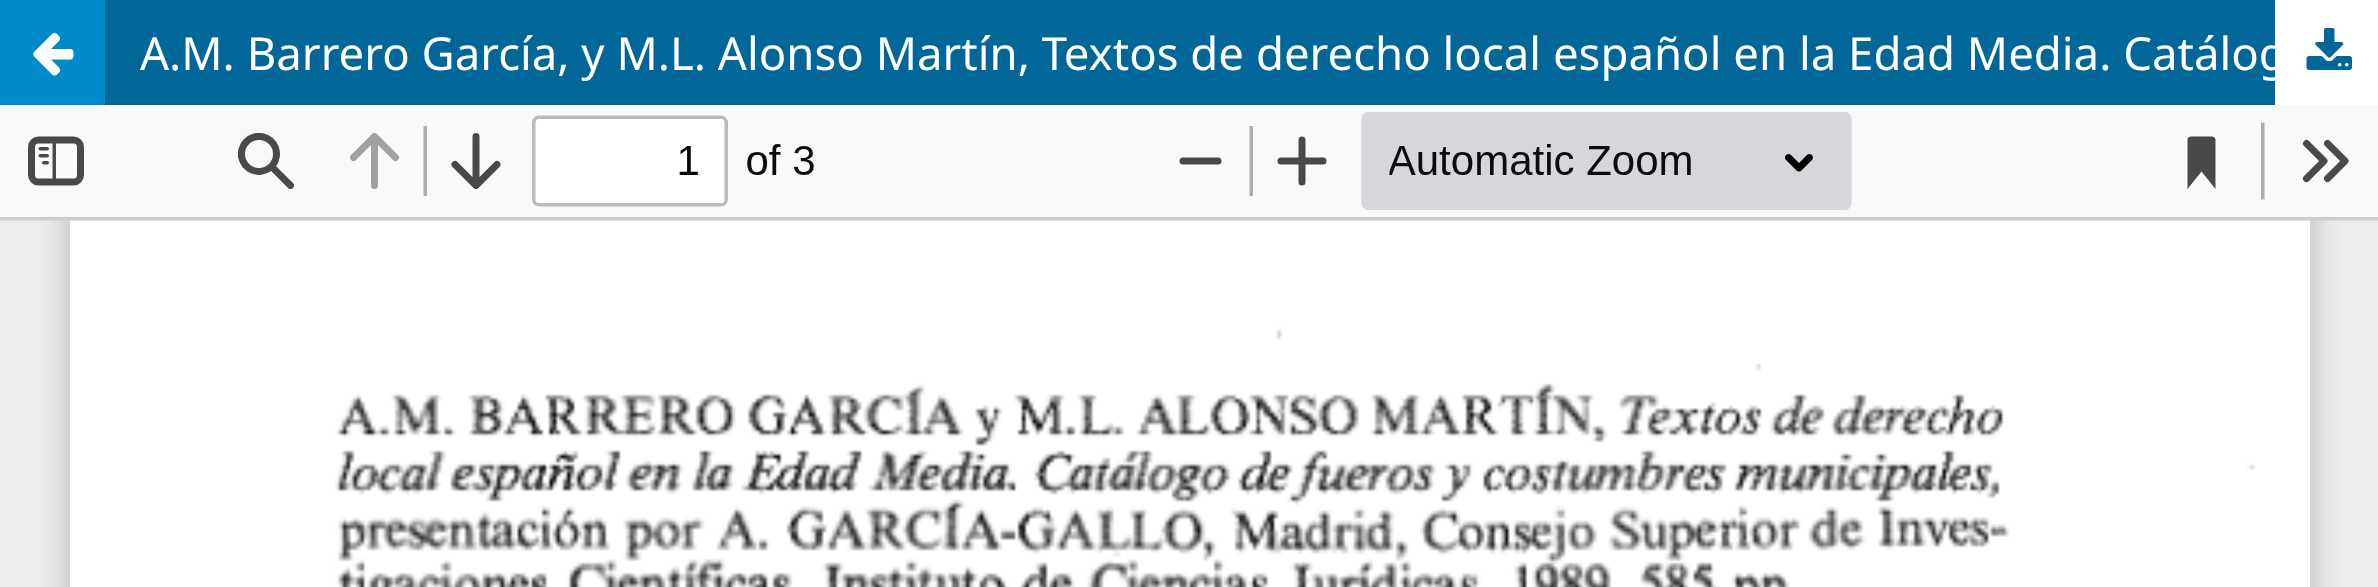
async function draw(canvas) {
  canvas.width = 2378;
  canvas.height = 587;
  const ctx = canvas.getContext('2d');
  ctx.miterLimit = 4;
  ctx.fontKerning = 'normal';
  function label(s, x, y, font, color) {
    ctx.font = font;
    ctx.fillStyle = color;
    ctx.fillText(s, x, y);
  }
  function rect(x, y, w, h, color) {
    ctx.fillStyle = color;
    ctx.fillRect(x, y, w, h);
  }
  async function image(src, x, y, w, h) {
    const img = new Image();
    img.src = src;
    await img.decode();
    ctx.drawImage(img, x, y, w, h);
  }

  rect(0, 0, 2378, 587, '#fff');
  rect(105, 0, 2170, 105, '#006798');
  rect(0, 0, 105, 105, '#008acb');
  await image('assets/img1.png', 33, 33, 41, 43);
  label('A.M. Barrero García, y M.L. Alonso Martín, Textos de derecho local español en la Edad Media. Catálog', 140, 70, '45.55px Noto Sans', '#fff');
  await image('assets/img2.png', 2306, 28, 46, 42);
  await image('assets/img3.png', 0, 105, 2378, 482);
}

draw(document.querySelector('canvas'));
